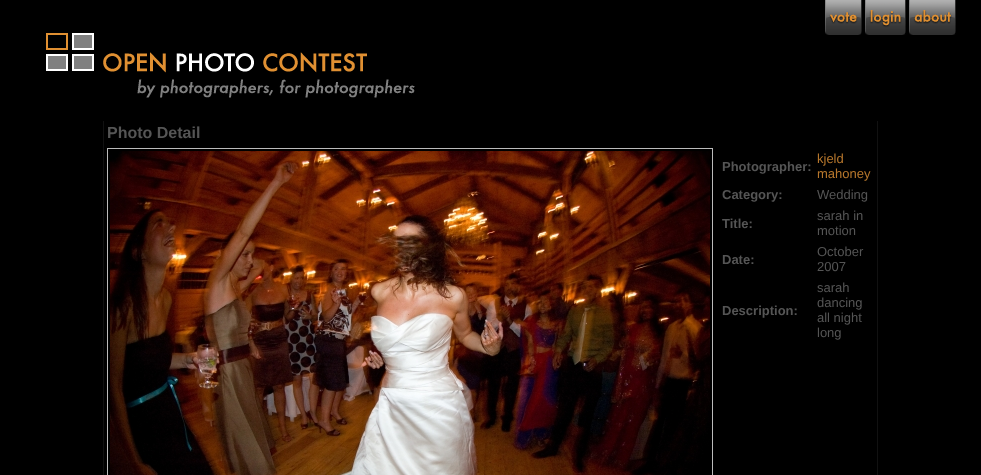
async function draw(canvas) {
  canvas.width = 981;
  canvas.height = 475;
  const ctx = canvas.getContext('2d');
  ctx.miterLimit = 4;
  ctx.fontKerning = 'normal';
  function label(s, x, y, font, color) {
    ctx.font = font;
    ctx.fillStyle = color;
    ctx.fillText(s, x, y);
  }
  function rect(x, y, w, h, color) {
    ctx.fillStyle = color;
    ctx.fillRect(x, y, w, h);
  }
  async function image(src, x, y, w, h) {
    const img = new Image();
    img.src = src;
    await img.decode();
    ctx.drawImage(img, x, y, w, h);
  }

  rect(0, 0, 981, 475, '#000');
  await image('assets/img1.png', 825, 0, 37, 35);
  await image('assets/img2.png', 865, 0, 41, 35);
  await image('assets/img3.png', 909, 0, 47, 35);
  await image('assets/img4.png', 46, 33, 369, 65);
  rect(877, 121, 1, 354, '#111');
  rect(103, 121, 1, 354, '#111');
  label('Photo Detail', 107, 138, 'bold 16px Liberation Sans', '#555');
  ctx.strokeStyle = '#bbb';
  ctx.strokeRect(107.5, 148.5, 605, 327);
  await image('assets/img5.png', 110, 151, 600, 324);
  label('Photographer:', 722, 171, 'bold 13px Liberation Sans', '#555');
  label('kjeld', 817, 163, '13px Liberation Sans', '#b7772c');
  label('mahoney', 817, 178, '13px Liberation Sans', '#b7772c');
  label('Category:', 722, 199, 'bold 13px Liberation Sans', '#555');
  label('Wedding', 817, 199, '13px Liberation Sans', '#555');
  label('Title:', 722, 228, 'bold 13px Liberation Sans', '#555');
  label('sarah in', 817, 220, '13px Liberation Sans', '#555');
  label('motion', 817, 235, '13px Liberation Sans', '#555');
  label('Date:', 722, 264, 'bold 13px Liberation Sans', '#555');
  label('October', 817, 256, '13px Liberation Sans', '#555');
  label('2007', 817, 271, '13px Liberation Sans', '#555');
  label('Description:', 722, 315, 'bold 13px Liberation Sans', '#555');
  label('sarah', 817, 292, '13px Liberation Sans', '#555');
  label('dancing', 817, 307, '13px Liberation Sans', '#555');
  label('all night', 817, 322, '13px Liberation Sans', '#555');
  label('long', 817, 337, '13px Liberation Sans', '#555');
}

draw(document.querySelector('canvas'));
